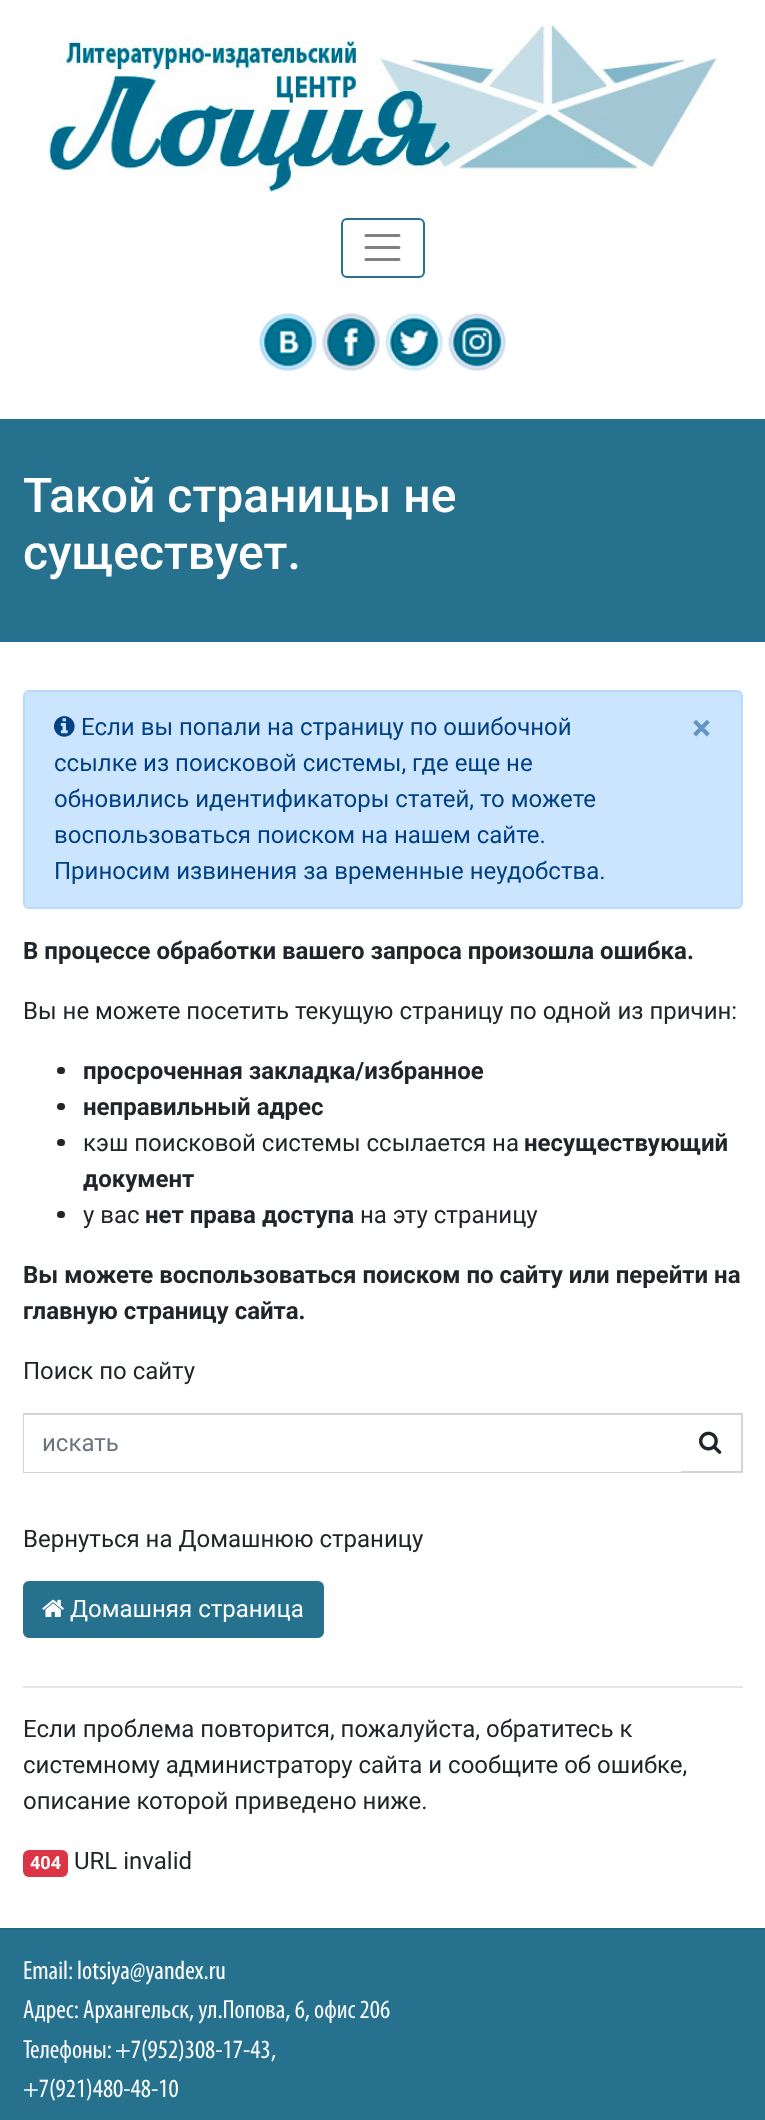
async function draw(canvas) {
  canvas.width = 765;
  canvas.height = 2120;
  const ctx = canvas.getContext('2d');
  ctx.miterLimit = 4;
  ctx.fontKerning = 'normal';
  function label(s, x, y, font, color) {
    ctx.font = font;
    ctx.fillStyle = color;
    ctx.fillText(s, x, y);
  }
  function rect(x, y, w, h, color) {
    ctx.fillStyle = color;
    ctx.fillRect(x, y, w, h);
  }
  function roundedRect(x, y, w, h, r, color) {
    ctx.fillStyle = color;
    ctx.beginPath();
    ctx.roundRect(x, y, w, h, r);
    ctx.fill();
  }
  async function image(src, x, y, w, h) {
    const img = new Image();
    img.src = src;
    await img.decode();
    ctx.drawImage(img, x, y, w, h);
  }
  let path;

  rect(0, 0, 765, 2120, '#fff');
  await image('assets/img1.png', 46, 24, 672, 169);
  ctx.beginPath();
  ctx.roundRect(342, 219, 82, 58, 5);
  ctx.strokeStyle = '#26728e';
  ctx.lineWidth = 2;
  ctx.stroke();
  path = new Path2D('M366 235.5H399M366 247.5H399M366 259.5H399');
  ctx.strokeStyle = '#808080';
  ctx.lineWidth = 3;
  ctx.lineCap = 'round';
  ctx.stroke(path);
  await image('assets/img2.png', 259, 313, 58, 58);
  await image('assets/img3.png', 322, 313, 58, 58);
  await image('assets/img4.png', 385, 313, 58, 58);
  await image('assets/img5.png', 448, 313, 58, 58);
  rect(0, 419, 765, 223, '#26728e');
  label('Такой страницы не', 23, 512, '500 48px Roboto', '#fff');
  label('существует.', 23, 569, '500 48px Roboto', '#fff');
  ctx.fillStyle = '#cce5ff';
  ctx.beginPath();
  ctx.roundRect(24, 691, 718, 217, 5);
  ctx.fill();
  ctx.strokeStyle = '#b8daff';
  ctx.lineWidth = 2;
  ctx.stroke();
  await image('assets/img6.png', 54, 716, 21, 21);
  label('Если вы попали на страницу по ошибочной', 81, 735, '24px Roboto', '#004085');
  label('×', 692, 740, 'bold 36px Roboto', '#6693c2');
  label('ссылке из поисковой системы, где еще не', 54, 771, '24px Roboto', '#004085');
  label('обновились идентификаторы статей, то можете', 54, 807, '24px Roboto', '#004085');
  label('воспользоваться поиском на нашем сайте.', 54, 843, '24px Roboto', '#004085');
  label('Приносим извинения за временные неудобства.', 54, 879, '24px Roboto', '#004085');
  label('В процессе обработки вашего запроса произошла ошибка.', 23, 959, 'bold 24px Roboto', '#212529');
  label('Вы не можете посетить текущую страницу по одной из причин:', 23, 1019, '24px Roboto', '#212529');
  roundedRect(57, 1067, 8, 7, 3.5, '#212529');
  label('просроченная закладка/избранное', 83, 1079, 'bold 24px Roboto', '#212529');
  roundedRect(57, 1103, 8, 7, 3.5, '#212529');
  label('неправильный адрес', 83, 1115, 'bold 24px Roboto', '#212529');
  roundedRect(57, 1139, 8, 7, 3.5, '#212529');
  label('кэш поисковой системы ссылается на', 83, 1151, '24px Roboto', '#212529');
  label('несуществующий', 524, 1151, 'bold 24px Roboto', '#212529');
  label('документ', 83, 1187, 'bold 24px Roboto', '#212529');
  roundedRect(57, 1211, 8, 7, 3.5, '#212529');
  label('у вас', 83, 1223, '24px Roboto', '#212529');
  label('нет права доступа', 145, 1223, 'bold 24px Roboto', '#212529');
  label('на эту страницу', 360, 1223, '24px Roboto', '#212529');
  label('Вы можете воспользоваться поиском по сайту или перейти на', 23, 1283, 'bold 24px Roboto', '#212529');
  label('главную страницу сайта.', 23, 1319, 'bold 24px Roboto', '#212529');
  label('Поиск по сайту', 23, 1379, '24px Roboto', '#212529');
  ctx.strokeStyle = '#ced4da';
  ctx.strokeRect(24, 1414, 718, 58);
  rect(24, 1415, 657, 57, '#fff');
  label('искать', 42, 1451, '24px Roboto', '#6c757d');
  await image('assets/img7.png', 699, 1431, 23, 23);
  label('Вернуться на Домашнюю страницу', 23, 1547, '24px Roboto', '#212529');
  ctx.fillStyle = '#26728e';
  ctx.beginPath();
  ctx.roundRect(24, 1582, 299, 55, 5);
  ctx.fill();
  ctx.strokeStyle = '#26728e';
  ctx.stroke();
  await image('assets/img8.png', 42, 1599, 22, 18);
  label('Домашняя страница', 70, 1617, '24px Roboto', '#fff');
  rect(23, 1686, 720, 2, '#e6e6e6');
  label('Если проблема повторится, пожалуйста, обратитесь к', 23, 1737, '24px Roboto', '#212529');
  label('системному администратору сайта и сообщите об ошибке,', 23, 1773, '24px Roboto', '#212529');
  label('описание которой приведено ниже.', 23, 1809, '24px Roboto', '#212529');
  roundedRect(23, 1850, 45, 27, 6, '#dc3545');
  label('404', 30, 1869, 'bold 18px Roboto', '#fff');
  label('URL invalid', 74, 1869, '24px Roboto', '#212529');
  rect(0, 1930, 765, 190, '#26728e');
  rect(0, 1928, 765, 2, '#226780');
  label('Email:', 23, 1979, '26.4px Myriad', '#f8f9fa');
  label('lotsiya@yandex.ru', 77, 1979, '26.4px Myriad', '#fff');
  label('Адрес: Архангельск, ул.Попова, 6, офис 206', 23, 2018, '26.4px Myriad', '#f8f9fa');
  label('Телефоны:', 23, 2058, '26.4px Myriad', '#f8f9fa');
  label('+7(952)308-17-43', 115, 2058, '26.4px Myriad', '#fff');
  label(',', 271, 2058, '26.4px Myriad', '#f8f9fa');
  label('+7(921)480-48-10', 23, 2097, '26.4px Myriad', '#fff');
}

draw(document.querySelector('canvas'));
